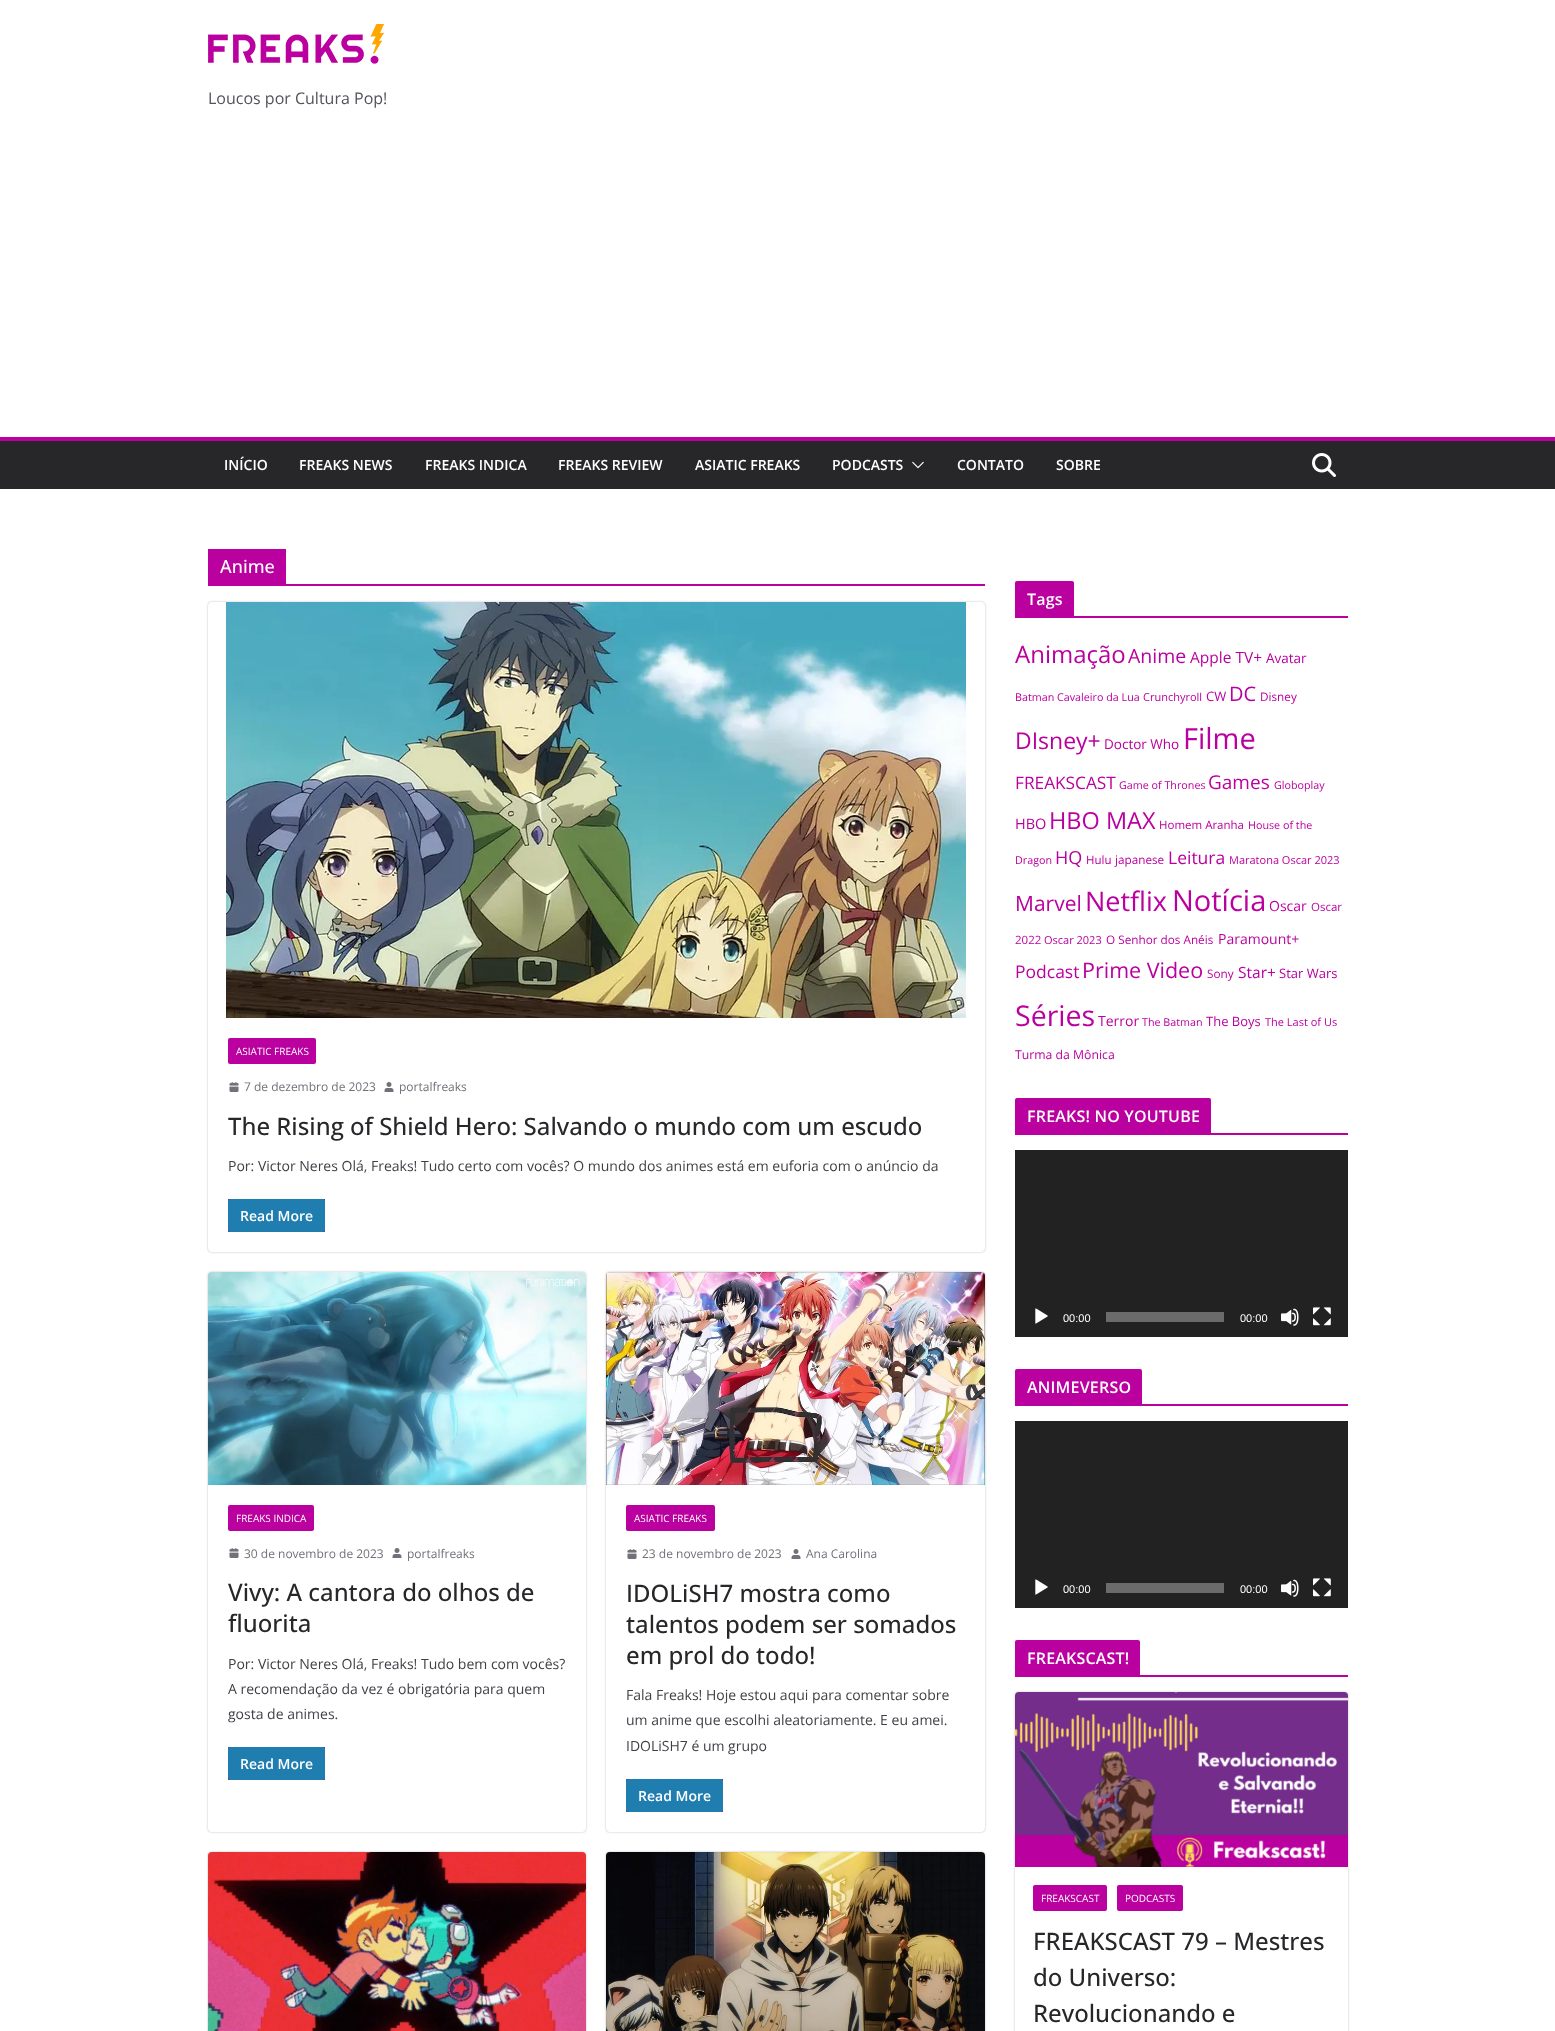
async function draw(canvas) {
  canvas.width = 1555;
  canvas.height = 2031;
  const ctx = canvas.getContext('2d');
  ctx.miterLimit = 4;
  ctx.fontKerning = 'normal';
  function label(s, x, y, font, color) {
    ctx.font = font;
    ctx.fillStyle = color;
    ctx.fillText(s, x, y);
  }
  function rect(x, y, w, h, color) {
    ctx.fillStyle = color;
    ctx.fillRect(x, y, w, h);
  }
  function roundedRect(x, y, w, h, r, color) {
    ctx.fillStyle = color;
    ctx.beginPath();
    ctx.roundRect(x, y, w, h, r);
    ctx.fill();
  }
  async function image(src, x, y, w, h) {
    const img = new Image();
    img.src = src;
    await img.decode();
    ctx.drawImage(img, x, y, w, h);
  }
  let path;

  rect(0, 0, 1555, 2031, '#fff');
  await image('assets/img1.png', 208, 24, 176, 40);
  label('Loucos por Cultura Pop!', 208, 104, '16px Open Sans', '#52525b');
  rect(0, 441, 1555, 48, '#27272a');
  rect(0, 437, 1555, 4, '#ba009e');
  label('INÍCIO', 224, 470, '600 14px Open Sans', '#fff');
  label('FREAKS NEWS', 299, 470, '600 14px Open Sans', '#fff');
  label('FREAKS INDICA', 425, 470, '600 14px Open Sans', '#fff');
  label('FREAKS REVIEW', 558, 470, '600 14px Open Sans', '#fff');
  label('ASIATIC FREAKS', 695, 470, '600 14px Open Sans', '#fff');
  label('PODCASTS', 832, 470, '600 14px Open Sans', '#fff');
  await image('assets/img2.png', 912, 461, 12, 8);
  label('CONTATO', 957, 470, '600 14px Open Sans', '#fff');
  label('SOBRE', 1056, 470, '600 14px Open Sans', '#fff');
  await image('assets/img3.png', 1312, 453, 24, 24);
  rect(208, 584, 777, 2, '#ba009e');
  rect(208, 549, 78, 35, '#ba009e');
  label('Anime', 220, 573, '500 18px Open Sans', '#fff');
  ctx.save();
  path = new Path2D('M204 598H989V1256H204ZM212 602H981C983 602 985 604 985 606V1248C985 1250 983 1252 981 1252H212C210 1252 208 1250 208 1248V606C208 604 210 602 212 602Z');
  ctx.clip(path, 'evenodd');
  ctx.fillStyle = '#0000003d';
  ctx.filter = 'blur(1px)';
  ctx.beginPath();
  ctx.roundRect(208, 602, 777, 650, 4);
  ctx.fill();
  ctx.filter = 'none';
  ctx.restore();
  await image('assets/img4.png', 226, 602, 740, 416);
  roundedRect(228, 1038, 88, 26, 2, '#ba009e');
  label('ASIATIC FREAKS', 236, 1055, '10px Open Sans', '#fff');
  await image('assets/img5.png', 229, 1082, 10, 10);
  label('7 de dezembro de 2023', 244, 1091, '12px Open Sans', '#71717a');
  await image('assets/img6.png', 384, 1082, 10, 10);
  label('portalfreaks', 399, 1091, '12px Open Sans', '#71717a');
  label('The Rising of Shield Hero: Salvando o mundo com um escudo', 228, 1135, '500 24px Open Sans', '#27272a');
  label('Por: Victor Neres Olá, Freaks! Tudo certo com vocês? O mundo dos animes está em euforia com o anúncio da', 228, 1171, '14px Open Sans', '#3f3f46');
  rect(228, 1199, 97, 33, '#ba009e');
  roundedRect(228, 1199, 97, 33, 2, '#207daf');
  label('Read More', 240, 1221, '600 14px Open Sans', '#fff');
  ctx.save();
  path = new Path2D('M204 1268H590V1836H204ZM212 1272H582C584 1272 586 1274 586 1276V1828C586 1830 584 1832 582 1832H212C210 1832 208 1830 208 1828V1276C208 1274 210 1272 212 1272Z');
  ctx.clip(path, 'evenodd');
  ctx.fillStyle = '#0000003d';
  ctx.filter = 'blur(1px)';
  ctx.beginPath();
  ctx.roundRect(208, 1272, 378, 560, 4);
  ctx.fill();
  ctx.filter = 'none';
  ctx.restore();
  await image('assets/img7.png', 208, 1272, 378, 213);
  roundedRect(228, 1505, 86, 26, 2, '#ba009e');
  label('FREAKS INDICA', 236, 1522, '10px Open Sans', '#fff');
  await image('assets/img5.png', 229, 1548, 10, 10);
  label('30 de novembro de 2023', 244, 1558, '12px Open Sans', '#71717a');
  await image('assets/img6.png', 392, 1548, 10, 10);
  label('portalfreaks', 407, 1558, '12px Open Sans', '#71717a');
  label('Vivy: A cantora do olhos de', 228, 1601, '500 24px Open Sans', '#27272a');
  label('fluorita', 228, 1632, '500 24px Open Sans', '#27272a');
  label('Por: Victor Neres Olá, Freaks! Tudo bem com vocês?', 228, 1669, '14px Open Sans', '#3f3f46');
  label('A recomendação da vez é obrigatória para quem', 228, 1694, '14px Open Sans', '#3f3f46');
  label('gosta de animes.', 228, 1719, '14px Open Sans', '#3f3f46');
  rect(228, 1747, 97, 33, '#ba009e');
  roundedRect(228, 1747, 97, 33, 2, '#207daf');
  label('Read More', 240, 1769, '600 14px Open Sans', '#fff');
  ctx.save();
  path = new Path2D('M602 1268H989V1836H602ZM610 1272H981C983 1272 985 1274 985 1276V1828C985 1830 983 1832 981 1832H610C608 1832 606 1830 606 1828V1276C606 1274 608 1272 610 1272Z');
  ctx.clip(path, 'evenodd');
  ctx.fillStyle = '#0000003d';
  ctx.filter = 'blur(1px)';
  ctx.beginPath();
  ctx.roundRect(606, 1272, 379, 560, 4);
  ctx.fill();
  ctx.filter = 'none';
  ctx.restore();
  await image('assets/img8.png', 606, 1272, 379, 213);
  roundedRect(626, 1505, 89, 26, 2, '#ba009e');
  label('ASIATIC FREAKS', 634, 1522, '10px Open Sans', '#fff');
  await image('assets/img5.png', 627, 1549, 10, 10);
  label('23 de novembro de 2023', 642, 1558, '12px Open Sans', '#71717a');
  await image('assets/img6.png', 791, 1549, 10, 10);
  label('Ana Carolina', 806, 1558, '12px Open Sans', '#71717a');
  label('IDOLiSH7 mostra como', 626, 1602, '500 24px Open Sans', '#27272a');
  label('talentos podem ser somados', 626, 1633, '500 24px Open Sans', '#27272a');
  label('em prol do todo!', 626, 1664, '500 24px Open Sans', '#27272a');
  label('Fala Freaks! Hoje estou aqui para comentar sobre', 626, 1700, '14px Open Sans', '#3f3f46');
  label('um anime que escolhi aleatoriamente. E eu amei.', 626, 1725, '14px Open Sans', '#3f3f46');
  label('IDOLiSH7 é um grupo', 626, 1751, '14px Open Sans', '#3f3f46');
  rect(626, 1779, 97, 33, '#ba009e');
  roundedRect(626, 1779, 97, 33, 2, '#207daf');
  label('Read More', 638, 1801, '600 14px Open Sans', '#fff');
  ctx.fillStyle = '#0000003d';
  ctx.filter = 'blur(1px)';
  ctx.beginPath();
  ctx.roundRect(208, 1852, 378, 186, 4);
  ctx.fill();
  ctx.filter = 'none';
  await image('assets/img9.png', 208, 1852, 378, 179);
  ctx.filter = 'blur(1px)';
  ctx.beginPath();
  ctx.roundRect(606, 1852, 379, 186, 4);
  ctx.fill();
  ctx.filter = 'none';
  await image('assets/img10.png', 606, 1852, 379, 179);
  rect(1015, 616, 333, 2, '#ba009e');
  ctx.beginPath();
  ctx.roundRect(1015, 581, 59, 35, [2, 2, 0, 0]);
  ctx.fill();
  ctx.letterSpacing = '0.2px';
  label('Tags', 1027, 605, '600 16px Open Sans', '#fff');
  ctx.letterSpacing = '0px';
  label('Animação', 1015, 663, '24px Open Sans', '#ba009e');
  label('Anime', 1128, 663, '19.5px Open Sans', '#ba009e');
  label('Apple TV+', 1190, 663, '15.5px Open Sans', '#ba009e');
  label('Avatar', 1266, 663, '13.5px Open Sans', '#ba009e');
  label('Batman', 1015, 701, '10.75px Open Sans', '#ba009e');
  label('Cavaleiro da Lua', 1057, 701, '10.75px Open Sans', '#ba009e');
  label('Crunchyroll', 1143, 701, '11px Open Sans', '#ba009e');
  label('CW', 1206, 701, '13px Open Sans', '#ba009e');
  label('DC', 1229, 701, '20px Open Sans', '#ba009e');
  label('Disney', 1260, 701, '11.75px Open Sans', '#ba009e');
  label('DIsney+', 1015, 749, '23px Open Sans', '#ba009e');
  label('Doctor Who', 1104, 749, '13.5px Open Sans', '#ba009e');
  label('Filme', 1183, 749, '29px Open Sans', '#ba009e');
  label('FREAKSCAST', 1015, 789, '17.25px Open Sans', '#ba009e');
  label('Game of Thrones', 1119, 789, '10.75px Open Sans', '#ba009e');
  label('Games', 1208, 789, '19px Open Sans', '#ba009e');
  label('Globoplay', 1274, 789, '10.75px Open Sans', '#ba009e');
  label('HBO', 1015, 829, '14.5px Open Sans', '#ba009e');
  label('HBO MAX', 1049, 829, '23.5px Open Sans', '#ba009e');
  label('Homem Aranha', 1159, 829, '11.5px Open Sans', '#ba009e');
  label('House of the', 1248, 829, '10.75px Open Sans', '#ba009e');
  label('Dragon', 1015, 864, '10.75px Open Sans', '#ba009e');
  label('HQ', 1055, 864, '18px Open Sans', '#ba009e');
  label('Hulu', 1086, 864, '11.5px Open Sans', '#ba009e');
  label('japanese', 1115, 864, '11.75px Open Sans', '#ba009e');
  label('Leitura', 1168, 864, '17.5px Open Sans', '#ba009e');
  label('Maratona Oscar 2023', 1229, 864, '11px Open Sans', '#ba009e');
  label('Marvel', 1015, 911, '21px Open Sans', '#ba009e');
  label('Netflix', 1085, 911, '27px Open Sans', '#ba009e');
  label('Notícia', 1172, 911, '29px Open Sans', '#ba009e');
  label('Oscar', 1269, 911, '14px Open Sans', '#ba009e');
  label('Oscar', 1311, 911, '11.5px Open Sans', '#ba009e');
  label('2022', 1015, 944, '11.5px Open Sans', '#ba009e');
  label('Oscar 2023', 1044, 944, '11px Open Sans', '#ba009e');
  label('O Senhor dos Anéis', 1106, 944, '11.75px Open Sans', '#ba009e');
  label('Paramount+', 1218, 944, '14px Open Sans', '#ba009e');
  label('Podcast', 1015, 978, '17.5px Open Sans', '#ba009e');
  label('Prime Video', 1082, 978, '21.5px Open Sans', '#ba009e');
  label('Sony', 1207, 978, '11.75px Open Sans', '#ba009e');
  label('Star+', 1238, 978, '15.5px Open Sans', '#ba009e');
  label('Star Wars', 1279, 978, '13px Open Sans', '#ba009e');
  label('Séries', 1015, 1026, '28.5px Open Sans', '#ba009e');
  label('Terror', 1098, 1026, '14px Open Sans', '#ba009e');
  label('The Batman', 1142, 1026, '10.75px Open Sans', '#ba009e');
  label('The Boys', 1206, 1026, '13px Open Sans', '#ba009e');
  label('The Last of Us', 1265, 1026, '11px Open Sans', '#ba009e');
  label('Turma da Mônica', 1015, 1059, '12.25px Open Sans', '#ba009e');
  rect(1015, 1133, 333, 2, '#ba009e');
  ctx.beginPath();
  ctx.roundRect(1015, 1098, 196, 35, [2, 2, 0, 0]);
  ctx.fill();
  ctx.letterSpacing = '0.2px';
  label('FREAKS! NO YOUTUBE', 1027, 1122, '600 16px Open Sans', '#fff');
  rect(1015, 1150, 333, 187, '#222');
  await image('assets/img11.png', 1035, 1308, 13, 16);
  ctx.letterSpacing = '0px';
  label('00:00', 1063, 1322, '11px Liberation Sans', '#fff');
  rect(1106, 1312, 118, 10, '#6b6b6b');
  label('00:00', 1240, 1322, '11px Liberation Sans', '#fff');
  await image('assets/img12.png', 1281, 1308, 18, 18);
  await image('assets/img13.png', 1313, 1307, 18, 19);
  rect(1015, 1404, 333, 2, '#ba009e');
  ctx.beginPath();
  ctx.roundRect(1015, 1369, 127, 35, [2, 2, 0, 0]);
  ctx.fill();
  ctx.letterSpacing = '0.2px';
  label('ANIMEVERSO', 1027, 1393, '600 16px Open Sans', '#fff');
  rect(1015, 1421, 333, 187, '#222');
  await image('assets/img11.png', 1035, 1579, 13, 16);
  ctx.letterSpacing = '0px';
  label('00:00', 1063, 1593, '11px Liberation Sans', '#fff');
  rect(1106, 1583, 118, 10, '#6b6b6b');
  label('00:00', 1240, 1593, '11px Liberation Sans', '#fff');
  await image('assets/img12.png', 1281, 1579, 18, 18);
  await image('assets/img13.png', 1313, 1578, 18, 19);
  rect(1015, 1675, 333, 2, '#ba009e');
  ctx.beginPath();
  ctx.roundRect(1015, 1640, 125, 35, [2, 2, 0, 0]);
  ctx.fill();
  ctx.letterSpacing = '0.2px';
  label('FREAKSCAST!', 1027, 1664, '600 16px Open Sans', '#fff');
  ctx.save();
  path = new Path2D('M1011 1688H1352V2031H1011ZM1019 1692H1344C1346 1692 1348 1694 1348 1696V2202C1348 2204 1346 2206 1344 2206H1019C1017 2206 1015 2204 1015 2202V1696C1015 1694 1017 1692 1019 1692Z');
  ctx.clip(path, 'evenodd');
  ctx.fillStyle = '#0000003d';
  ctx.filter = 'blur(1px)';
  ctx.beginPath();
  ctx.roundRect(1015, 1692, 333, 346, 4);
  ctx.fill();
  ctx.filter = 'none';
  ctx.restore();
  await image('assets/img14.png', 1015, 1692, 333, 175);
  roundedRect(1033, 1885, 74, 26, 2, '#ba009e');
  ctx.letterSpacing = '0px';
  label('FREAKSCAST', 1041, 1902, '10px Open Sans', '#fff');
  roundedRect(1117, 1885, 66, 26, 2, '#ba009e');
  label('PODCASTS', 1125, 1902, '10px Open Sans', '#fff');
  label('FREAKSCAST 79 – Mestres', 1033, 1950, '500 24px Open Sans', '#27272a');
  label('do Universo:', 1033, 1986, '500 24px Open Sans', '#27272a');
  label('Revolucionando e', 1033, 2022, '500 24px Open Sans', '#27272a');
}

draw(document.querySelector('canvas'));
